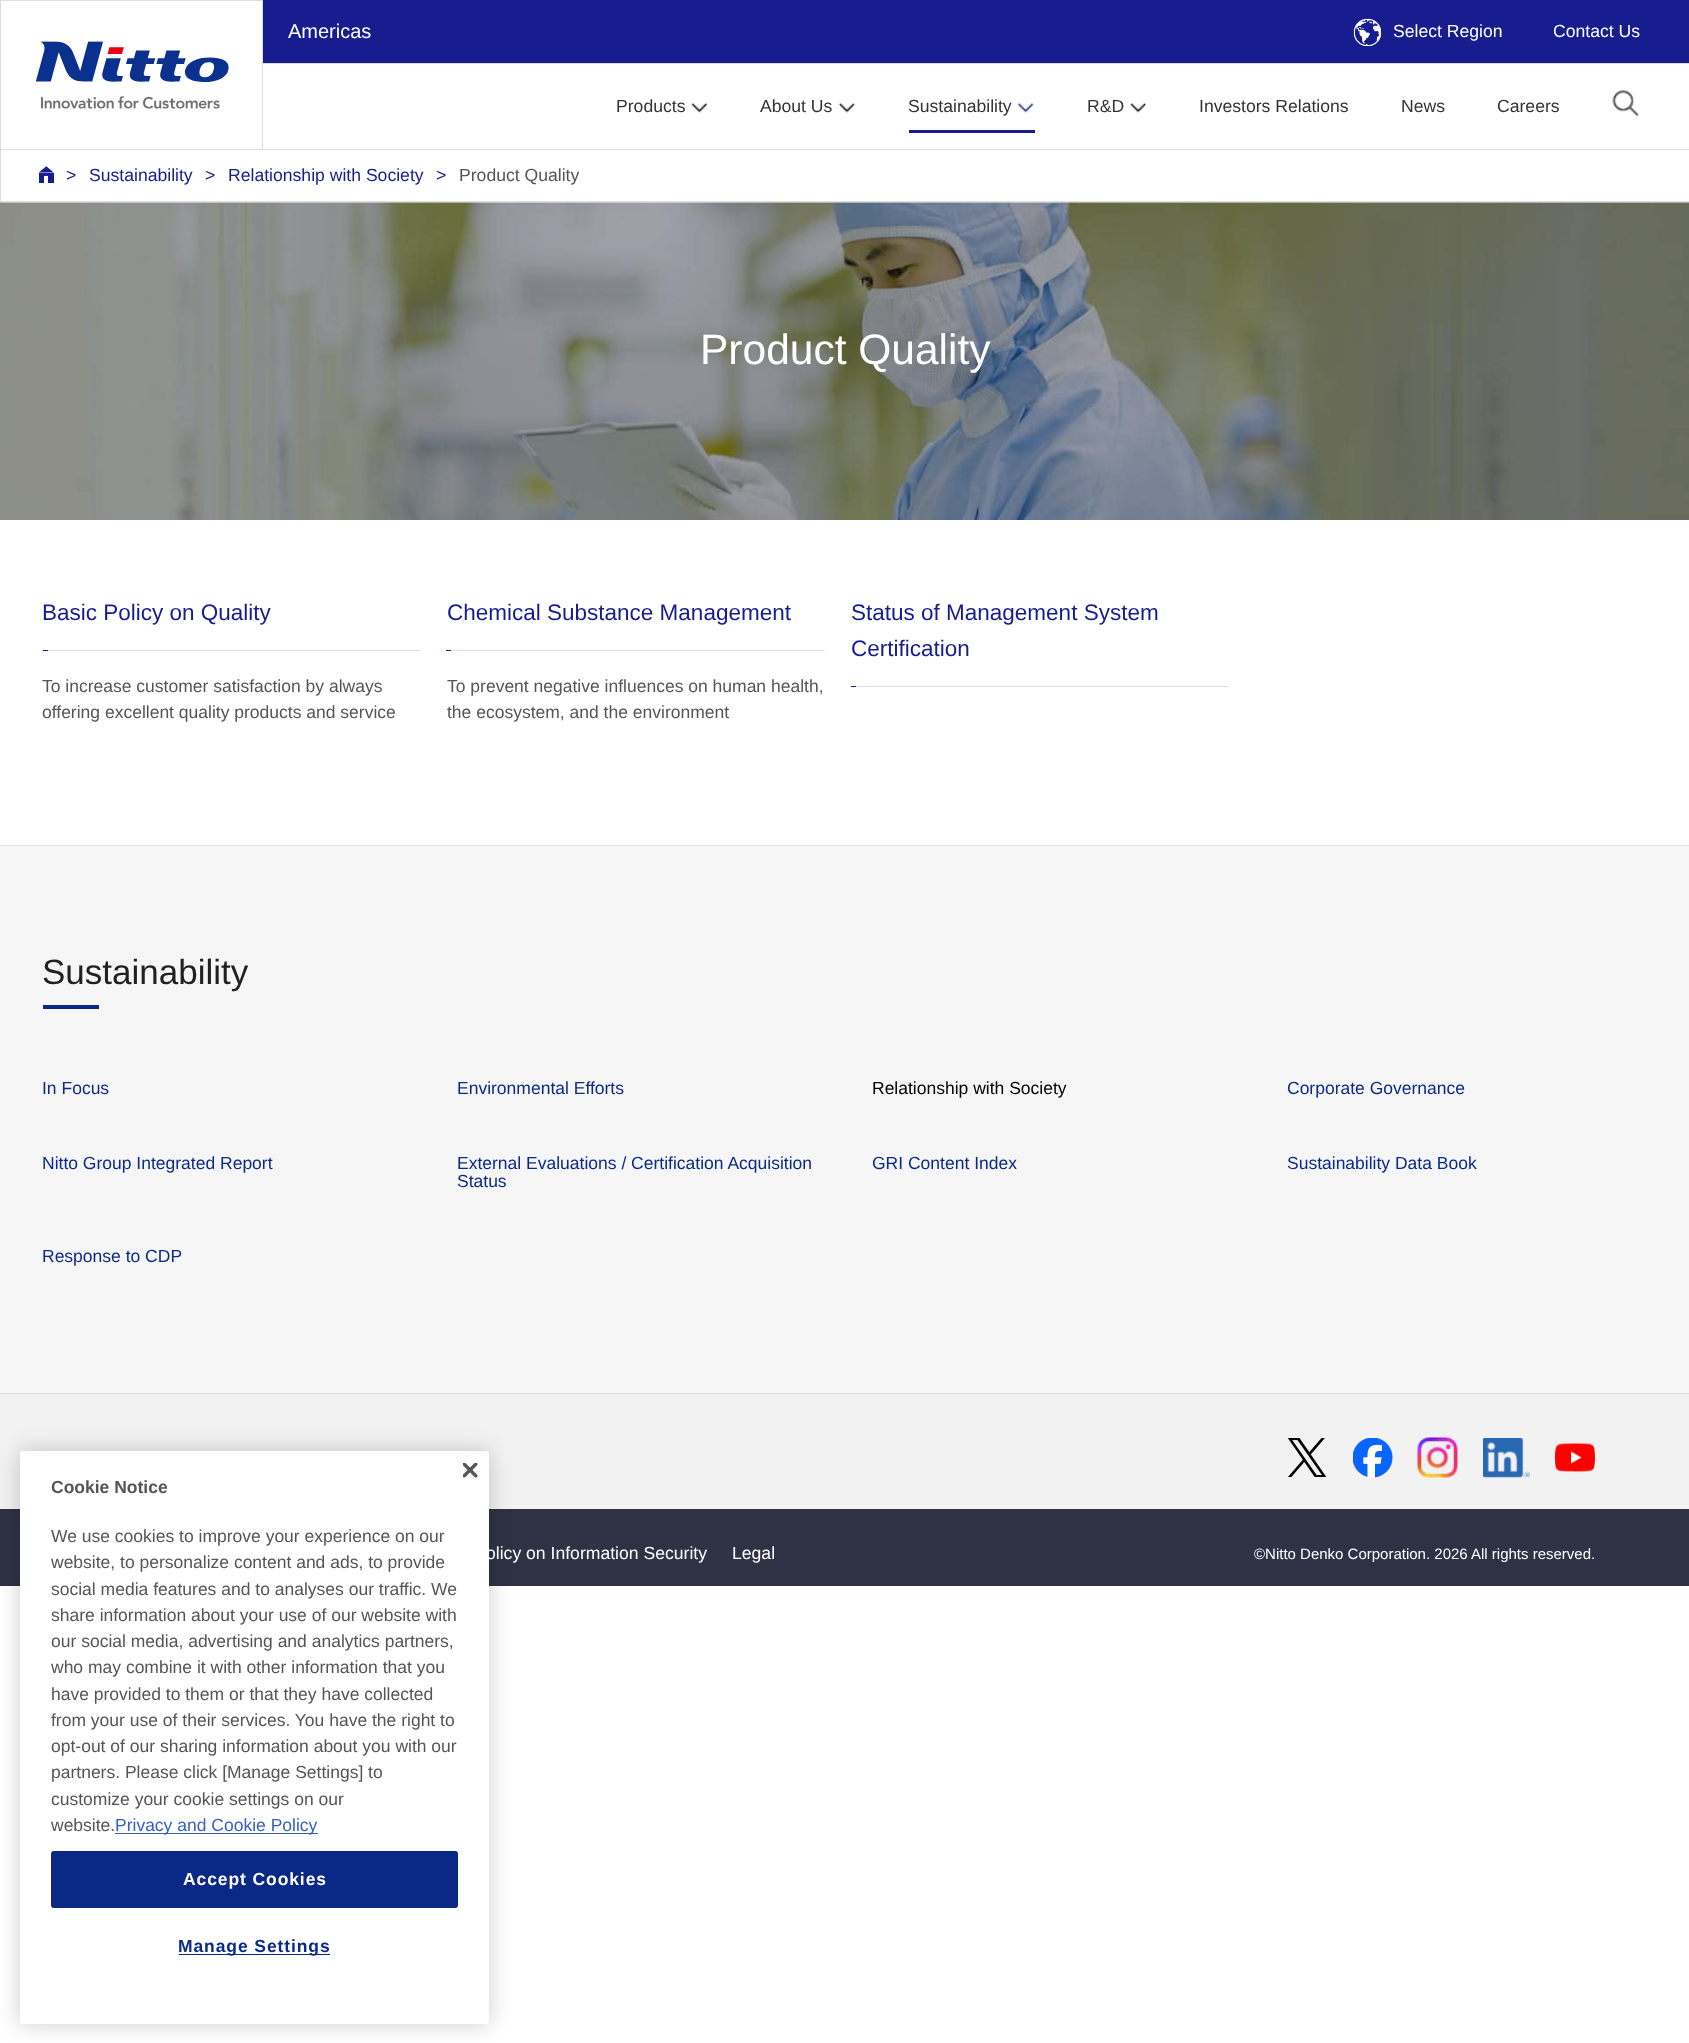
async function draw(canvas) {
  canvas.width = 1689;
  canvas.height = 2043;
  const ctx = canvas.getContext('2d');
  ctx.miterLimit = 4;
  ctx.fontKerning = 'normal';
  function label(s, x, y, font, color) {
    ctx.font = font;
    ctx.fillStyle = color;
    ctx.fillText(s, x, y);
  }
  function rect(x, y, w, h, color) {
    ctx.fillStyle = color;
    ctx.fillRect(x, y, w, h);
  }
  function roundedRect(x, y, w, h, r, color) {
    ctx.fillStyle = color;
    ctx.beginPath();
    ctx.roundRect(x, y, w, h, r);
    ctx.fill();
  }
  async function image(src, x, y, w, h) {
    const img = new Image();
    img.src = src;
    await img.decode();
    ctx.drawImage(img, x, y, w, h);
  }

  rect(0, 0, 1689, 2043, '#fff');
  ctx.strokeStyle = '#ddd';
  ctx.strokeRect(0.5, 0.5, 262, 149);
  await image('assets/img1.png', 35, 41, 194, 68);
  rect(263, 0, 1426, 63, '#171c8f');
  label('Americas', 288, 38, '20px Liberation Sans', '#fff');
  await image('assets/img2.png', 1353, 18, 28, 28);
  label('Select Region', 1393, 37, '17.6px Liberation Sans', '#fff');
  label('Contact Us', 1553, 37, '17.6px Liberation Sans', '#fff');
  rect(263, 63, 1426, 1, '#ddd');
  rect(263, 149, 1426, 1, '#ddd');
  label('Products', 616, 112, '17.6px Liberation Sans', '#333');
  await image('assets/img3.png', 691, 102, 17, 11);
  label('About Us', 760, 112, '17.6px Liberation Sans', '#333');
  await image('assets/img4.png', 838, 102, 17, 11);
  label('Sustainability', 908, 112, '17.6px Liberation Sans', '#333');
  await image('assets/img5.png', 1017, 102, 17, 11);
  rect(909, 130, 126, 3, '#171c8f');
  label('R&D', 1087, 112, '17.6px Liberation Sans', '#333');
  await image('assets/img6.png', 1130, 102, 17, 11);
  label('Investors Relations', 1199, 112, '17.6px Liberation Sans', '#333');
  label('News', 1401, 112, '17.6px Liberation Sans', '#333');
  label('Careers', 1497, 112, '17.6px Liberation Sans', '#333');
  await image('assets/img7.png', 1612, 90, 27, 27);
  rect(0, 201, 1689, 1, '#ddd');
  rect(0, 150, 1, 53, '#ddd');
  await image('assets/img8.png', 39, 166, 15, 17);
  label('>', 66, 181, '17.6px Liberation Sans', '#171c8f');
  label('Sustainability', 89, 181, '17.6px Liberation Sans', '#171c8f');
  label('>', 205, 181, '17.6px Liberation Sans', '#171c8f');
  label('Relationship with Society', 228, 181, '17.6px Liberation Sans', '#171c8f');
  label('>', 436, 181, '17.6px Liberation Sans', '#171c8f');
  label('Product Quality', 459, 181, '17.6px Liberation Sans', '#555');
  await image('assets/img9.png', 0, 202, 1689, 318);
  label('Product Quality', 700, 364, '42.5px Liberation Sans', '#fff');
  label('Basic Policy on Quality', 42, 620, '22.5px Liberation Sans', '#171c8f');
  rect(43, 650, 377, 1, '#ddd');
  rect(43, 650, 5, 1, '#0b2a87');
  label('To increase customer satisfaction by always', 42, 692, '17.5px Liberation Sans', '#555');
  label('offering excellent quality products and service', 42, 718, '17.5px Liberation Sans', '#555');
  label('Chemical Substance Management', 447, 620, '22.5px Liberation Sans', '#171c8f');
  rect(446, 650, 379, 1, '#ddd');
  rect(446, 650, 5, 1, '#0b2a87');
  label('To prevent negative influences on human health,', 447, 692, '17.5px Liberation Sans', '#555');
  label('the ecosystem, and the environment', 447, 718, '17.5px Liberation Sans', '#555');
  label('Status of Management System', 851, 620, '22.5px Liberation Sans', '#171c8f');
  label('Certification', 851, 656, '22.5px Liberation Sans', '#171c8f');
  rect(851, 686, 378, 1, '#ddd');
  rect(851, 686, 5, 1, '#0b2a87');
  rect(0, 846, 1689, 547, '#f6f6f6');
  rect(0, 845, 1689, 1, '#e5e5e5');
  label('Sustainability', 42, 984, '35px Liberation Sans', '#212121');
  rect(43, 1005, 56, 4, '#0a2986');
  label('In Focus', 42, 1094, '17.5px Liberation Sans', '#0b2a87');
  label('Environmental Efforts', 457, 1094, '17.5px Liberation Sans', '#0b2a87');
  label('Relationship with Society', 872, 1094, '17.5px Liberation Sans', '#000');
  label('Corporate Governance', 1287, 1094, '17.5px Liberation Sans', '#0b2a87');
  label('Nitto Group Integrated Report', 42, 1169, '17.5px Liberation Sans', '#0b2a87');
  label('External Evaluations / Certification Acquisition', 457, 1169, '17.5px Liberation Sans', '#0b2a87');
  label('Status', 457, 1187, '17.5px Liberation Sans', '#0b2a87');
  label('GRI Content Index', 872, 1169, '17.5px Liberation Sans', '#0b2a87');
  label('Sustainability Data Book', 1287, 1169, '17.5px Liberation Sans', '#0b2a87');
  label('Response to CDP', 42, 1262, '17.5px Liberation Sans', '#0b2a87');
  rect(0, 1394, 1689, 115, '#f2f2f2');
  rect(0, 1509, 1689, 77, '#2f3244');
  ctx.fillStyle = '#00000033';
  ctx.filter = 'blur(11px)';
  ctx.beginPath();
  ctx.roundRect(20, 1451, 469, 573, 3);
  ctx.fill();
  ctx.filter = 'none';
  roundedRect(20, 1451, 469, 573, 3, '#fff');
  await image('assets/img10.png', 463, 1463, 15, 15);
  label('Cookie Notice', 51, 1493, 'bold 17.5px Liberation Sans', '#555');
  label('We use cookies to improve your experience on our', 51, 1542, '17.5px Liberation Sans', '#555');
  label('website, to personalize content and ads, to provide', 51, 1568, '17.5px Liberation Sans', '#555');
  label('social media features and to analyses our traffic. We', 51, 1595, '17.5px Liberation Sans', '#555');
  label('share information about your use of our website with', 51, 1621, '17.5px Liberation Sans', '#555');
  label('our social media, advertising and analytics partners,', 51, 1647, '17.5px Liberation Sans', '#555');
  label('who may combine it with other information that you', 51, 1673, '17.5px Liberation Sans', '#555');
  label('have provided to them or that they have collected', 51, 1700, '17.5px Liberation Sans', '#555');
  label('from your use of their services. You have the right to', 51, 1726, '17.5px Liberation Sans', '#555');
  label('opt-out of our sharing information about you with our', 51, 1752, '17.5px Liberation Sans', '#555');
  label('partners. Please click [Manage Settings] to', 51, 1778, '17.5px Liberation Sans', '#555');
  label('customize your cookie settings on our', 51, 1805, '17.5px Liberation Sans', '#555');
  label('website.', 51, 1831, '17.5px Liberation Sans', '#555');
  rect(115, 1833, 203, 1, '#3860be');
  label('Privacy and Cookie Policy', 115, 1831, '17.5px Liberation Sans', '#3860be');
  ctx.fillStyle = '#0a2986';
  ctx.beginPath();
  ctx.roundRect(51.5, 1851.5, 406, 56, 2);
  ctx.fill();
  ctx.strokeStyle = '#0a2986';
  ctx.stroke();
  ctx.letterSpacing = '0.9px';
  label('Accept Cookies', 183, 1885, 'bold 17.5px Liberation Sans', '#fff');
  rect(179, 1954, 151, 1, '#0a2986');
  label('Manage Settings', 178, 1952, 'bold 17.5px Liberation Sans', '#0b2a87');
  rect(0, 1393, 1689, 1, '#ddd');
  await image('assets/img11.png', 1288, 1438, 39, 39);
  await image('assets/img12.png', 1353, 1438, 40, 40);
  await image('assets/img13.png', 1417, 1437, 41, 41);
  await image('assets/img14.png', 1483, 1438, 47, 40);
  await image('assets/img15.png', 1555, 1442, 40, 31);
  ctx.letterSpacing = '0px';
  label('olicy on Information Security', 486, 1559, '17.6px Liberation Sans', '#fff');
  label('Legal', 732, 1559, '17.6px Liberation Sans', '#fff');
  label('©Nitto Denko Corporation. 2026 All rights reserved.', 1254, 1559, '15px Liberation Sans', '#fff');
}

draw(document.querySelector('canvas'));
